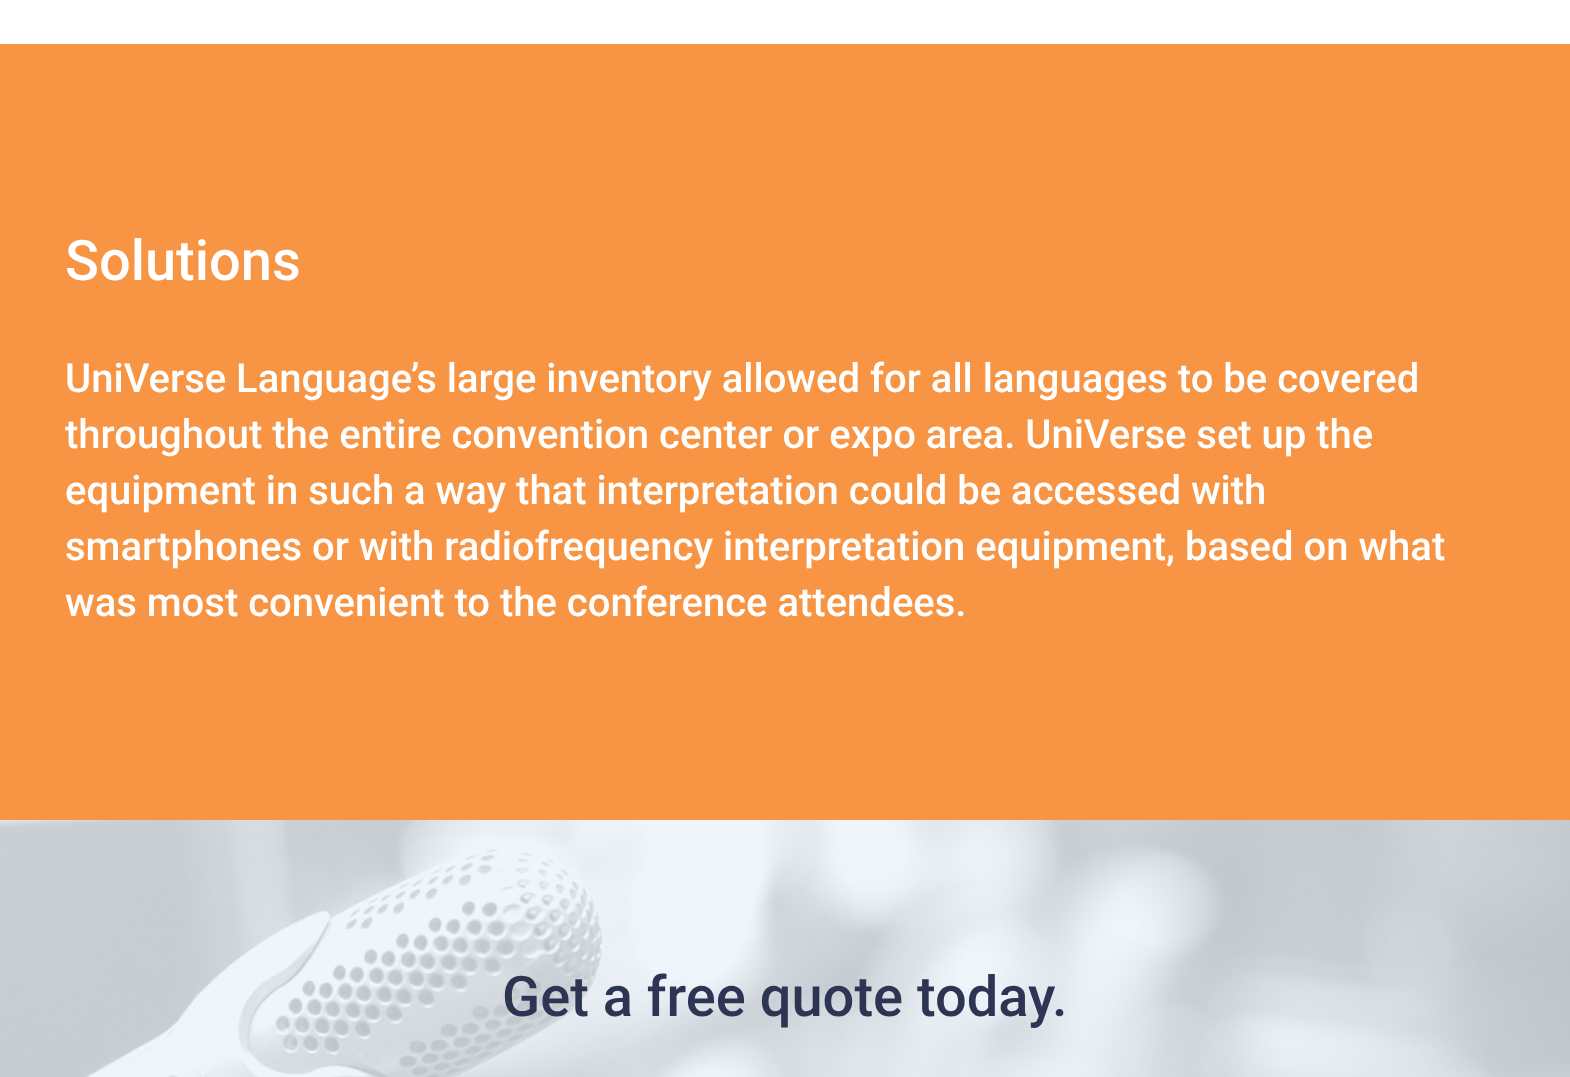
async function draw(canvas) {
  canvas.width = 1570;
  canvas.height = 1077;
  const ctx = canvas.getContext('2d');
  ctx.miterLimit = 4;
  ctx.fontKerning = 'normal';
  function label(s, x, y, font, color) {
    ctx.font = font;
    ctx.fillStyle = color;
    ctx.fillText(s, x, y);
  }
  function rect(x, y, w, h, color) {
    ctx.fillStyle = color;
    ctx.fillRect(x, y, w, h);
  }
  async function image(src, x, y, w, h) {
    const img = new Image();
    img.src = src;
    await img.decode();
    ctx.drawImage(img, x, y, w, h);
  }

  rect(0, 0, 1570, 1077, '#fff');
  rect(0, 44, 1570, 776, '#f79545');
  label('Solutions', 65, 280, '500 56px Roboto', '#fff');
  label('UniVerse Language’s large inventory allowed for all languages to be covered', 65, 392, '500 40px Roboto', '#fff');
  label('throughout the entire convention center or expo area. UniVerse set up the', 65, 448, '500 40px Roboto', '#fff');
  label('equipment in such a way that interpretation could be accessed with', 65, 504, '500 40px Roboto', '#fff');
  label('smartphones or with radiofrequency interpretation equipment, based on what', 65, 560, '500 40px Roboto', '#fff');
  label('was most convenient to the conference attendees.', 65, 616, '500 40px Roboto', '#fff');
  await image('assets/img1.png', 0, 820, 1570, 257);
  label('Get a free quote today.', 502, 1016, '500 56px Roboto', '#2d3552');
}

draw(document.querySelector('canvas'));
